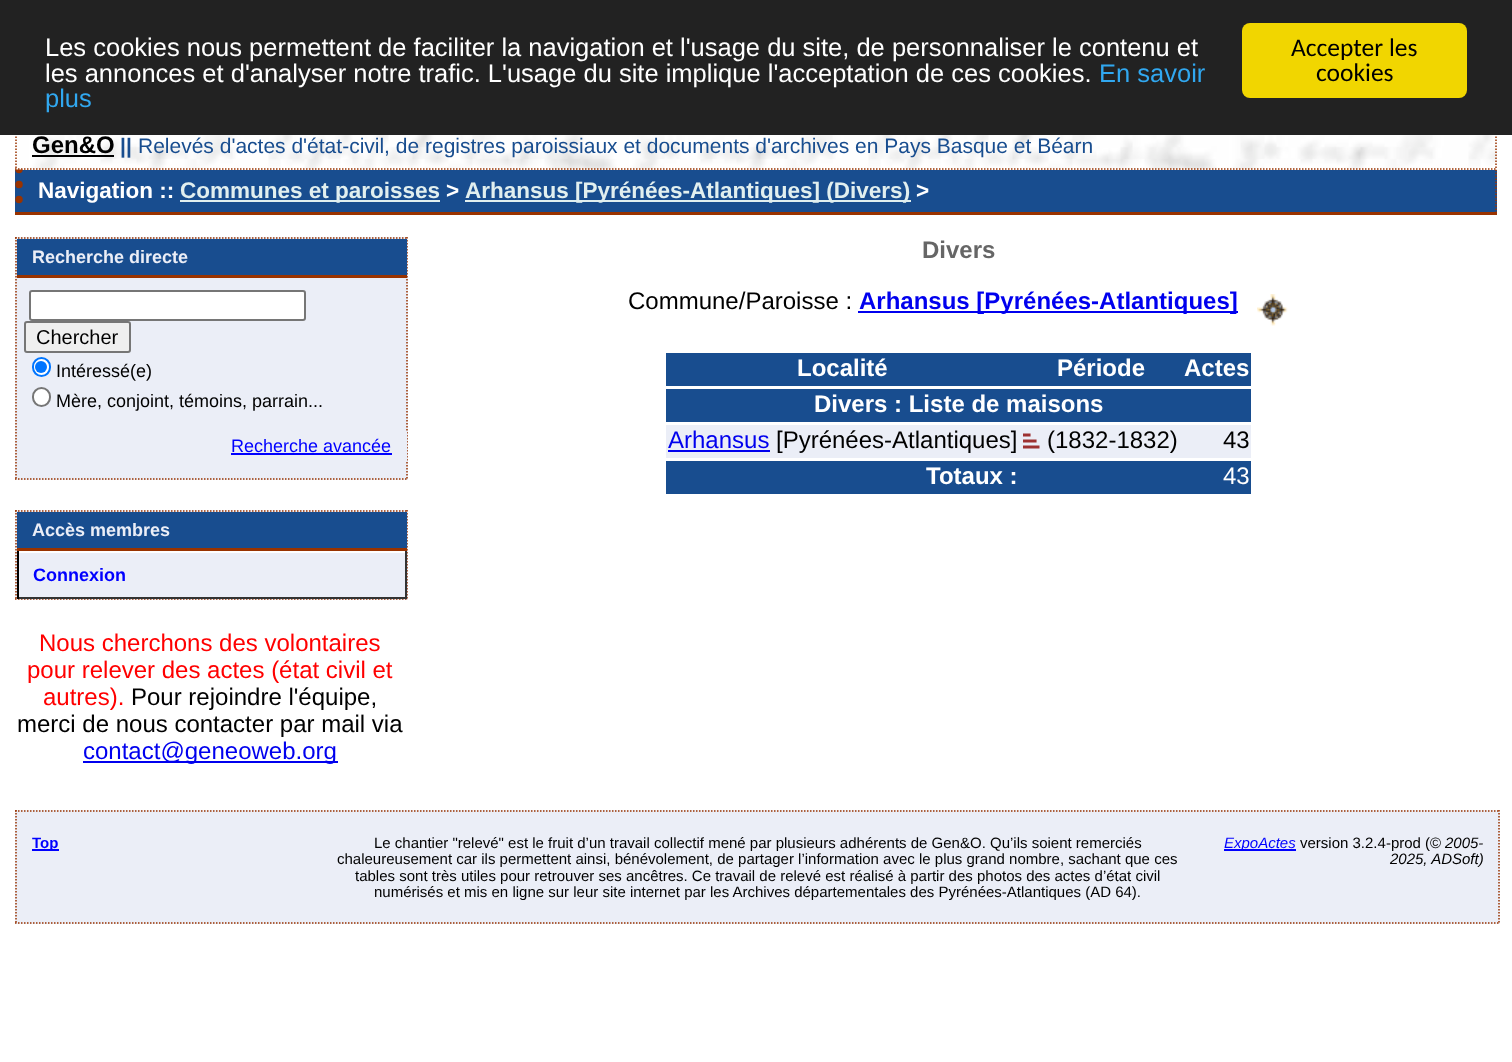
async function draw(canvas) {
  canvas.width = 1512;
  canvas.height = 1062;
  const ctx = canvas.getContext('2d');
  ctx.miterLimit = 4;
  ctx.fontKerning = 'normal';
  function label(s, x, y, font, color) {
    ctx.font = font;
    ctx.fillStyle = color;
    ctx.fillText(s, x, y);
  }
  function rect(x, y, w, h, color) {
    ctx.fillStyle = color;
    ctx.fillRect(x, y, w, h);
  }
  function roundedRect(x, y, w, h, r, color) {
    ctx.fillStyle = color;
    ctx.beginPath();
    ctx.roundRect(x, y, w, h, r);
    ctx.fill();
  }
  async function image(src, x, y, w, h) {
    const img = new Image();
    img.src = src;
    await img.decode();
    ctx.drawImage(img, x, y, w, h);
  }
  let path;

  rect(0, 0, 1512, 1062, '#fff');
  rect(15, 170, 1482, 42, '#184d8f');
  path = new Path2D('M1496 169.5V214.5');
  ctx.strokeStyle = '#930';
  ctx.lineWidth = 1.5;
  ctx.setLineDash([1.5, 1.5]);
  ctx.stroke(path);
  rect(15, 212, 1482, 3, '#930');
  path = new Path2D('M19 169.5V214.5');
  ctx.lineWidth = 7.5;
  ctx.lineCap = 'round';
  ctx.setLineDash([0, 15]);
  ctx.stroke(path);
  await image('assets/img1.png', 15, 135, 1482, 35);
  path = new Path2D('M1496 121.5V169.5');
  ctx.lineWidth = 1.5;
  ctx.lineCap = 'butt';
  ctx.setLineDash([1.5, 1.5]);
  ctx.stroke(path);
  path = new Path2D('M16 121.5V169.5');
  ctx.stroke(path);
  rect(0, 0, 1512, 135, '#222');
  label('Les cookies nous permettent de faciliter la navigation et l\'usage du site, de personnaliser le contenu et', 45, 56, '25.5px Liberation Sans', '#fff');
  label('les annonces et d\'analyser notre trafic. L\'usage du site implique l\'acceptation de ces cookies.', 45, 82, '25.5px Liberation Sans', '#fff');
  label('En savoir', 1099, 82, '25.5px Liberation Sans', '#31a8f0');
  label('plus', 45, 107, '25.5px Liberation Sans', '#31a8f0');
  roundedRect(1242, 23, 225, 75, 8, '#f1d600');
  label('Accepter les', 1291, 56, '25.5px Carlito', '#000');
  label('cookies', 1316, 81, '25.5px Carlito', '#000');
  path = new Path2D('M15 169H1497');
  ctx.stroke(path);
  label('Gen&O', 32, 153, 'bold 24px Liberation Sans', '#000');
  rect(32, 155, 82, 2, '#000');
  label('||', 120, 153, 'bold 21px Liberation Sans', '#184d8f');
  label('Relevés d\'actes d\'état-civil, de registres paroissiaux et documents d\'archives en Pays Basque et Béarn', 138, 153, '21px Liberation Sans', '#184d8f');
  label('Navigation ::', 38, 198, 'bold 22.5px Liberation Sans', '#fff');
  rect(180, 200, 260, 2, '#e1efef');
  label('Communes et paroisses', 180, 198, 'bold 22.5px Liberation Sans', '#e1efef');
  label('>', 446, 198, 'bold 22.5px Liberation Sans', '#fff');
  rect(465, 200, 446, 2, '#e1efef');
  label('Arhansus [Pyrénées-Atlantiques] (Divers)', 465, 198, 'bold 22.5px Liberation Sans', '#e1efef');
  label('>', 916, 198, 'bold 22.5px Liberation Sans', '#fff');
  rect(15, 237, 393, 243, '#ebeef7');
  path = new Path2D('M15 238H408');
  ctx.stroke(path);
  path = new Path2D('M407 237V480');
  ctx.stroke(path);
  path = new Path2D('M15 479H408');
  ctx.stroke(path);
  path = new Path2D('M16 237V480');
  ctx.stroke(path);
  rect(17, 239, 390, 36, '#184d8f');
  rect(17, 275, 390, 3, '#930');
  label('Recherche directe', 32, 263, 'bold 18px Liberation Sans', '#ebeef7');
  ctx.fillStyle = '#fff';
  ctx.beginPath();
  ctx.roundRect(30, 291, 275, 29, 2);
  ctx.fill();
  ctx.strokeStyle = '#767676';
  ctx.lineWidth = 2;
  ctx.setLineDash([]);
  ctx.stroke();
  ctx.fillStyle = '#efefef';
  ctx.beginPath();
  ctx.roundRect(25, 322, 105, 30, 2);
  ctx.fill();
  ctx.stroke();
  label('Chercher', 36, 344, '20px Liberation Sans', '#000');
  ctx.fillStyle = '#fff';
  ctx.beginPath();
  ctx.roundRect(33, 358, 17, 18, 8.5);
  ctx.fill();
  ctx.strokeStyle = '#0075ff';
  ctx.stroke();
  ctx.fillStyle = '#0075ff';
  ctx.beginPath();
  ctx.arc(41, 367, 6, 0, 2 * Math.PI);
  ctx.fill();
  label('Intéressé(e)', 56, 377, '18px Liberation Sans', '#000');
  ctx.fillStyle = '#fff';
  ctx.beginPath();
  ctx.roundRect(33, 388, 17, 18, 8.5);
  ctx.fill();
  ctx.strokeStyle = '#767676';
  ctx.stroke();
  label('Mère, conjoint, témoins, parrain...', 56, 407, '18px Liberation Sans', '#000');
  rect(406, 432, 1, 29, '#ebeef7');
  label('Recherche avancée', 231, 452, '18px Liberation Sans', '#00f');
  rect(231, 453, 161, 2, '#00f');
  rect(15, 510, 393, 90, '#ebeef7');
  path = new Path2D('M15 511H408');
  ctx.strokeStyle = '#930';
  ctx.lineWidth = 1.5;
  ctx.setLineDash([1.5, 1.5]);
  ctx.stroke(path);
  path = new Path2D('M407 510V600');
  ctx.stroke(path);
  path = new Path2D('M15 599H408');
  ctx.stroke(path);
  path = new Path2D('M16 510V600');
  ctx.stroke(path);
  rect(17, 512, 390, 36, '#184d8f');
  rect(17, 548, 390, 3, '#930');
  label('Accès membres', 32, 536, 'bold 18px Liberation Sans', '#ebeef7');
  rect(17, 551, 390, 2, '#fff');
  rect(405, 551, 2, 48, '#333');
  rect(17, 597, 390, 2, '#333');
  rect(17, 551, 2, 48, '#000');
  label('Connexion', 33, 581, 'bold 18px Liberation Sans', '#00f');
  label('Nous cherchons des volontaires', 39, 651, '24px Liberation Sans', '#f00');
  label('pour relever des actes (état civil et', 27, 678, '24px Liberation Sans', '#f00');
  label('autres).', 43, 705, '24px Liberation Sans', '#f00');
  label('Pour rejoindre l\'équipe,', 131, 705, '24px Liberation Sans', '#000');
  label('merci de nous contacter par mail via', 17, 732, '24px Liberation Sans', '#000');
  rect(83, 761, 255, 2, '#00e');
  label('contact@geneoweb.org', 83, 759, '24px Liberation Sans', '#00e');
  label('Divers', 922, 258, 'bold 24px Liberation Sans', '#666');
  label('Commune/Paroisse :', 628, 309, '24px Liberation Sans', '#000');
  rect(858, 311, 380, 2, '#00e');
  label('Arhansus [Pyrénées-Atlantiques]', 859, 309, 'bold 24px Liberation Sans', '#00e');
  await image('assets/img2.png', 1257, 294, 31, 32);
  rect(666, 353, 585, 33, '#184d8f');
  label('Localité', 797, 376, 'bold 24px Liberation Sans', '#fff');
  label('Période', 1057, 376, 'bold 24px Liberation Sans', '#fff');
  label('Actes', 1184, 376, 'bold 24px Liberation Sans', '#fff');
  rect(666, 389, 585, 33, '#184d8f');
  label('Divers : Liste de maisons', 814, 412, 'bold 24px Liberation Sans', '#fff');
  rect(666, 425, 585, 33, '#ebeef7');
  label('Arhansus', 668, 448, '24px Liberation Sans', '#00e');
  rect(668, 450, 102, 2, '#00e');
  label('[Pyrénées-Atlantiques]', 776, 448, '24px Liberation Sans', '#000');
  await image('assets/img3.png', 1023, 433, 17, 16);
  label('(1832-1832)', 1047, 448, '24px Liberation Sans', '#000');
  label('43', 1223, 448, '24px Liberation Sans', '#000');
  rect(666, 461, 585, 33, '#184d8f');
  label('Totaux :', 926, 484, 'bold 24px Liberation Sans', '#fff');
  label('43', 1223, 484, '24px Liberation Sans', '#fff');
  rect(15, 810, 1485, 114, '#ebeef7');
  path = new Path2D('M15 811H1500');
  ctx.stroke(path);
  path = new Path2D('M1499 810V924');
  ctx.stroke(path);
  path = new Path2D('M15 923H1500');
  ctx.stroke(path);
  path = new Path2D('M16 810V924');
  ctx.stroke(path);
  rect(32, 849, 27, 2, '#00f');
  label('Top', 32, 848, 'bold 15px Liberation Sans', '#00f');
  label('Le chantier "relevé" est le fruit d’un travail collectif mené par plusieurs adhérents de Gen&O. Qu’ils soient remerciés', 374, 848, '15px Liberation Sans', '#000');
  label('chaleureusement car ils permettent ainsi, bénévolement, de partager l’information avec le plus grand nombre, sachant que ces', 337, 864, '15px Liberation Sans', '#000');
  label('tables sont très utiles pour retrouver ses ancêtres. Ce travail de relevé est réalisé à partir des photos des actes d’état civil', 355, 881, '15px Liberation Sans', '#000');
  label('numérisés et mis en ligne sur leur site internet par les Archives départementales des Pyrénées-Atlantiques (AD 64).', 374, 897, '15px Liberation Sans', '#000');
  rect(1224, 849, 72, 2, '#00f');
  label('ExpoActes', 1224, 848, 'italic 15px Liberation Sans', '#00f');
  label('version 3.2.4-prod (©', 1300, 848, '15px Liberation Sans', '#000');
  label('2005-', 1445, 848, 'italic 15px Liberation Sans', '#000');
  label('2025, ADSoft)', 1390, 864, 'italic 15px Liberation Sans', '#000');
}

draw(document.querySelector('canvas'));
